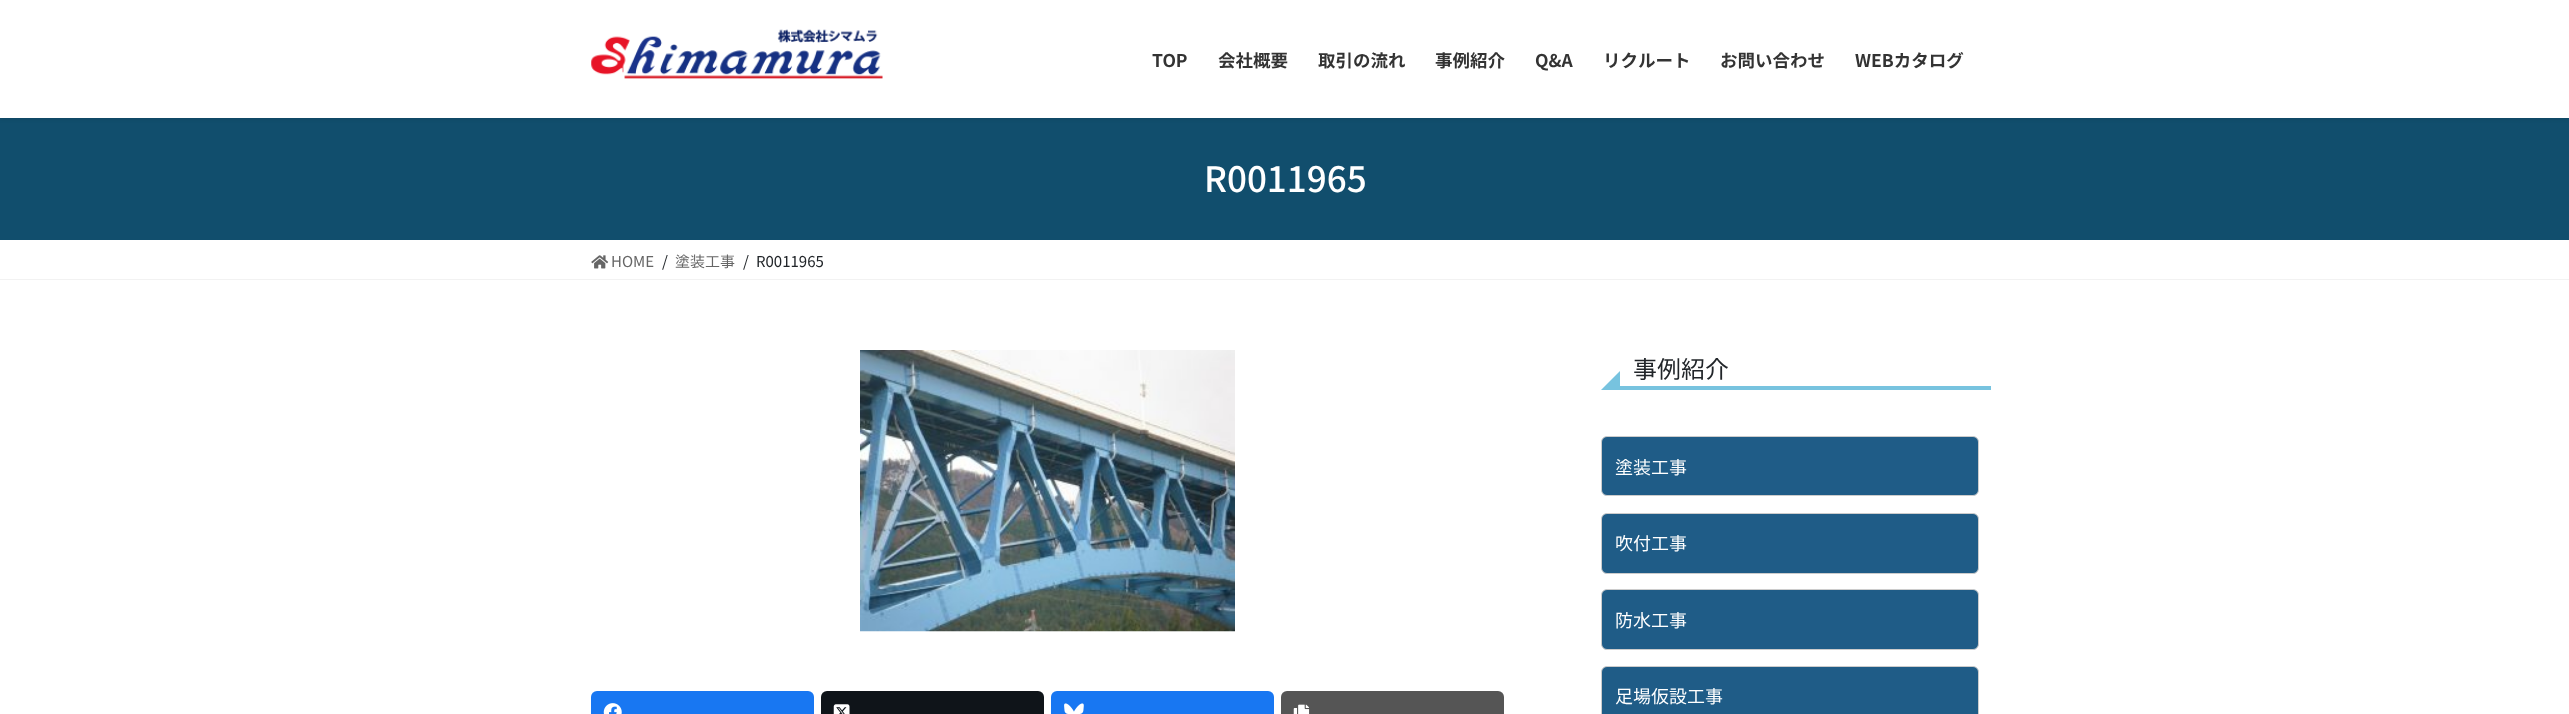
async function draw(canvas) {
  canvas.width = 2569;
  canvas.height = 714;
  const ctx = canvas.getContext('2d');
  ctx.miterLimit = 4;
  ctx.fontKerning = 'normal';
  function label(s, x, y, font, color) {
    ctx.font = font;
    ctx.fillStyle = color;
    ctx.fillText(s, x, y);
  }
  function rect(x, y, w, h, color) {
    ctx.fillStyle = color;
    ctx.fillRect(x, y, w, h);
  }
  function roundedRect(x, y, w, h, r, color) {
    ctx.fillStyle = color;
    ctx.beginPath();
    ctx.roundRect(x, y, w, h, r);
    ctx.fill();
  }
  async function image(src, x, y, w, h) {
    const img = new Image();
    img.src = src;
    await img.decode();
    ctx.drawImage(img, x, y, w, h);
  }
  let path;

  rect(0, 0, 2569, 714, '#fff');
  rect(0, 118, 2569, 122, '#114e6d');
  ctx.fillStyle = '#0000001a';
  ctx.filter = 'blur(2px)';
  ctx.beginPath();
  ctx.rect(0, 1, 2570, 118);
  ctx.fill();
  ctx.filter = 'none';
  rect(0, 0, 2569, 118, '#fff');
  await image('assets/img1.png', 591, 29, 292, 50);
  label('TOP', 1152, 67, 'bold 17.5px Noto Sans JP', '#333');
  label('会社概要', 1218, 67, 'bold 17.5px Noto Sans JP', '#333');
  label('取引の流れ', 1318, 67, 'bold 17.5px Noto Sans JP', '#333');
  label('事例紹介', 1435, 67, 'bold 17.5px Noto Sans JP', '#333');
  label('Q&A', 1535, 67, 'bold 17.5px Noto Sans JP', '#333');
  label('リクルート', 1603, 67, 'bold 17.5px Noto Sans JP', '#333');
  label('お問い合わせ', 1720, 67, 'bold 17.5px Noto Sans JP', '#333');
  label('WEBカタログ', 1855, 67, 'bold 17.5px Noto Sans JP', '#333');
  label('R0011965', 1204, 192, '500 35px Noto Sans JP', '#fff');
  rect(0, 279, 2569, 1, '#f2f2f2');
  await image('assets/img2.png', 591, 255, 18, 14);
  label('HOME', 611, 267, '15px Noto Sans JP', '#666');
  label('/', 662, 267, '15px Noto Sans JP', '#212529');
  label('塗装工事', 675, 267, '15px Noto Sans JP', '#666');
  label('/', 743, 267, '15px Noto Sans JP', '#212529');
  label('R0011965', 756, 267, '15px Noto Sans JP', '#212529');
  await image('assets/img3.png', 860, 350, 375, 282);
  roundedRect(591, 691, 223, 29, 6, '#1877f2');
  await image('assets/img4.png', 603, 703, 19, 11);
  roundedRect(821, 691, 223, 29, 6, '#0f1419');
  await image('assets/img5.png', 833, 704, 17, 10);
  roundedRect(1051, 691, 223, 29, 6, '#1877f2');
  await image('assets/img6.png', 1064, 703, 20, 11);
  roundedRect(1281, 691, 223, 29, 6, '#555');
  await image('assets/img7.png', 1293, 704, 17, 10);
  ctx.fillStyle = '#77c3df';
  path = new Path2D('M1620 390H1601L1620 371Z');
  ctx.fill(path);
  label('事例紹介', 1633, 378, '24px Noto Sans JP', '#212529');
  rect(1614, 386, 377, 4, '#77c3df');
  ctx.fillStyle = '#1f5c87';
  ctx.beginPath();
  ctx.roundRect(1601.5, 436.5, 377, 59, 5.5);
  ctx.fill();
  ctx.strokeStyle = '#ccc';
  ctx.stroke();
  label('塗装工事', 1615, 474, '18px Noto Sans JP', '#fff');
  ctx.fillStyle = '#1f5c87';
  ctx.beginPath();
  ctx.roundRect(1601.5, 513.5, 377, 60, 5.5);
  ctx.fill();
  ctx.stroke();
  label('吹付工事', 1615, 550, '18px Noto Sans JP', '#fff');
  ctx.fillStyle = '#1f5c87';
  ctx.beginPath();
  ctx.roundRect(1601.5, 589.5, 377, 60, 5.5);
  ctx.fill();
  ctx.stroke();
  label('防水工事', 1615, 627, '18px Noto Sans JP', '#fff');
  ctx.fillStyle = '#1f5c87';
  ctx.beginPath();
  ctx.roundRect(1601.5, 666.5, 377, 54, 5.5);
  ctx.fill();
  ctx.stroke();
  label('足場仮設工事', 1615, 703, '18px Noto Sans JP', '#fff');
}

draw(document.querySelector('canvas'));
